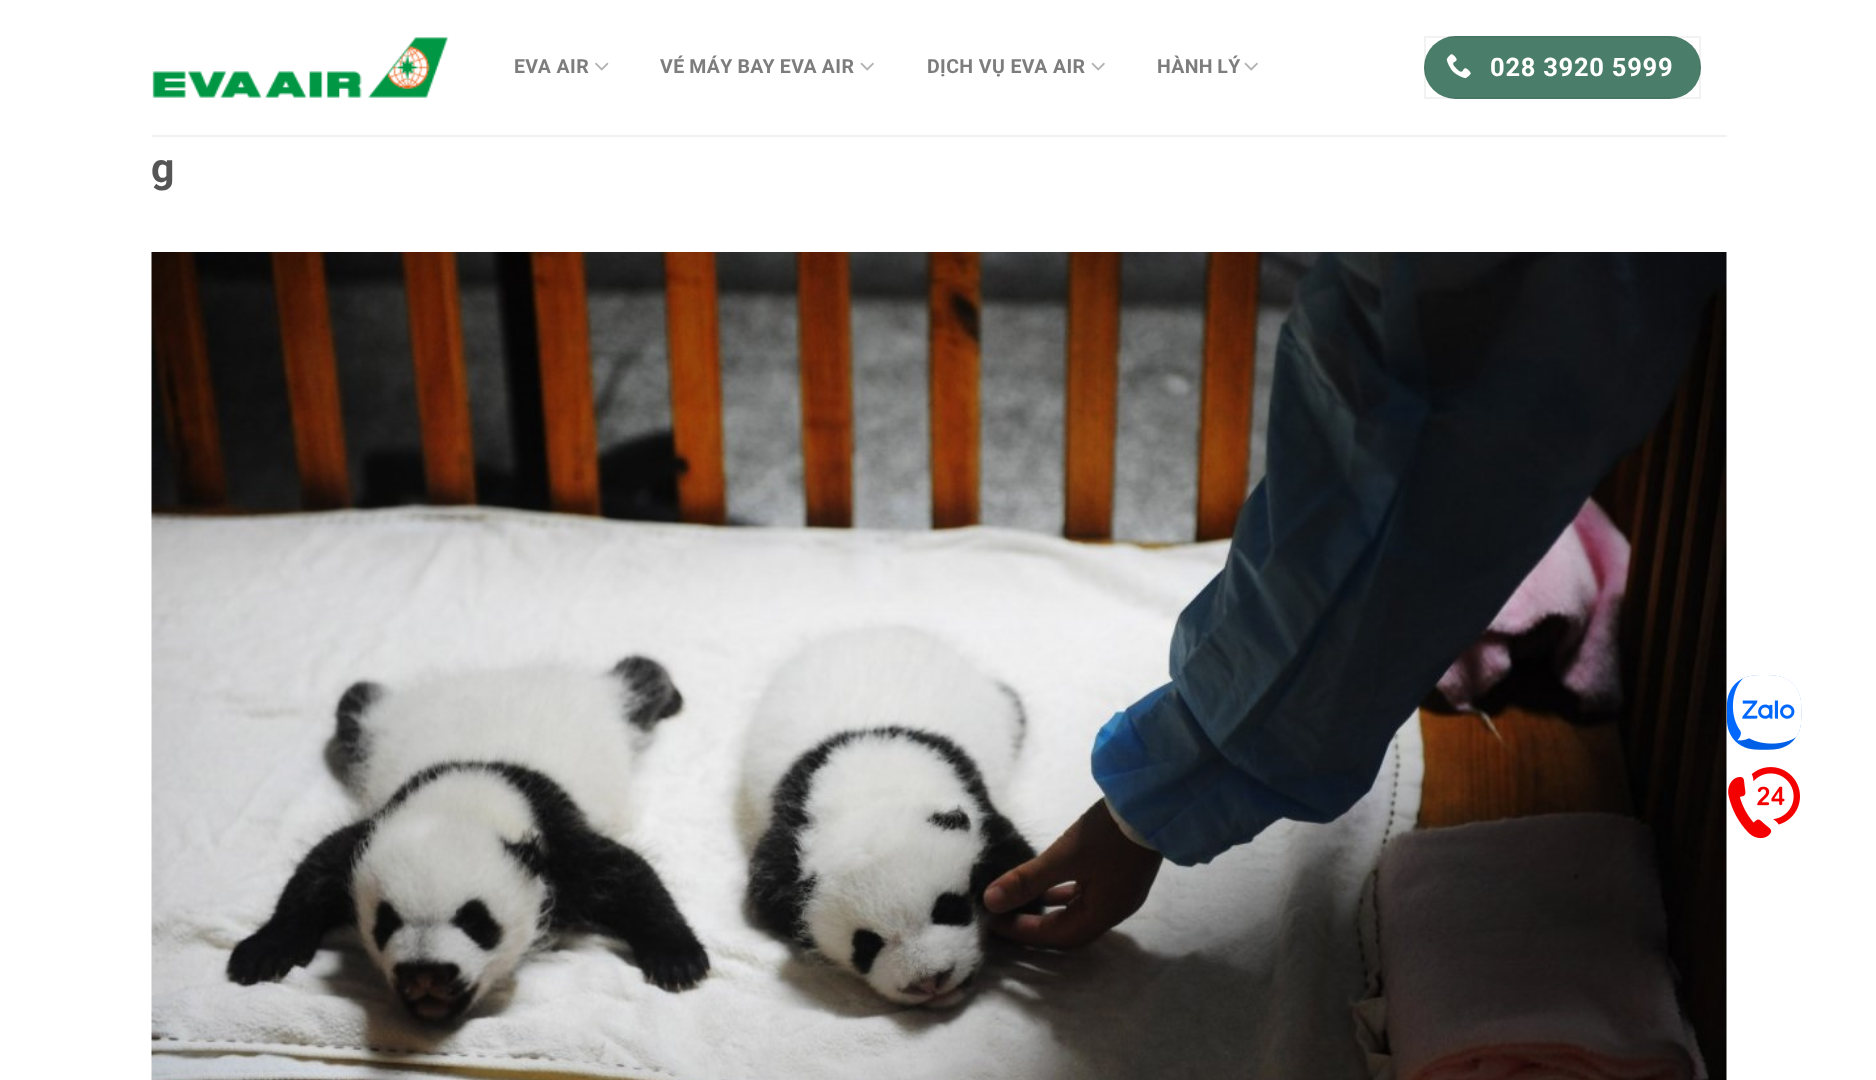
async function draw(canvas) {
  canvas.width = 1876;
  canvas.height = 1080;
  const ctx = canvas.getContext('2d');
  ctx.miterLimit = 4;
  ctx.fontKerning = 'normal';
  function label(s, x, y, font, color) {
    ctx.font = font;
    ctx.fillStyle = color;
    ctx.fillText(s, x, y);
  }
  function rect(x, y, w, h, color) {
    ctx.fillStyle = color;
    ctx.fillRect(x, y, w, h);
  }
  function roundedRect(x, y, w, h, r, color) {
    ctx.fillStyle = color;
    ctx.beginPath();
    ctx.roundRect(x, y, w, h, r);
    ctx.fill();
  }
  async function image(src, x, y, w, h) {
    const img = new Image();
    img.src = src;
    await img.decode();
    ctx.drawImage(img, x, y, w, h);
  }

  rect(0, 0, 1876, 1080, '#fff');
  await image('assets/img1.png', 152, 37, 297, 61);
  ctx.letterSpacing = '0.4px';
  label('EVA AIR', 514, 73, 'bold 19.5px Roboto', '#7d7d7d');
  await image('assets/img2.png', 595, 62, 14, 9);
  ctx.wordSpacing = '-0.5px';
  label('VÉ MÁY BAY EVA AIR', 660, 73, 'bold 19.5px Roboto', '#7d7d7d');
  await image('assets/img3.png', 860, 62, 14, 9);
  ctx.wordSpacing = '0px';
  label('DỊCH VỤ EVA AIR', 927, 73, 'bold 19.5px Roboto', '#7d7d7d');
  await image('assets/img3.png', 1091, 62, 14, 9);
  ctx.wordSpacing = '-1px';
  label('HÀNH LÝ', 1157, 73, 'bold 19.5px Roboto', '#7d7d7d');
  await image('assets/img3.png', 1244, 62, 14, 9);
  roundedRect(1424, 36, 277, 63, 31.5, '#4b7d6b');
  ctx.strokeStyle = '#0000000d';
  ctx.lineWidth = 2;
  ctx.strokeRect(1425, 37, 275, 61);
  await image('assets/img4.png', 1446, 54, 25, 25);
  ctx.letterSpacing = '0.75px';
  ctx.wordSpacing = '0px';
  label('028 3920 5999', 1490, 76, 'bold 25.5px Roboto', '#fff');
  rect(152, 135, 1575, 2, '#f1f1f1');
  ctx.letterSpacing = '0px';
  label('g', 151, 182, 'bold 41px Roboto', '#555');
  await image('assets/img5.png', 151, 252, 1576, 828);
  await image('assets/img6.png', 1727, 675, 75, 75);
  await image('assets/img7.png', 1728, 767, 72, 72);
}

draw(document.querySelector('canvas'));
